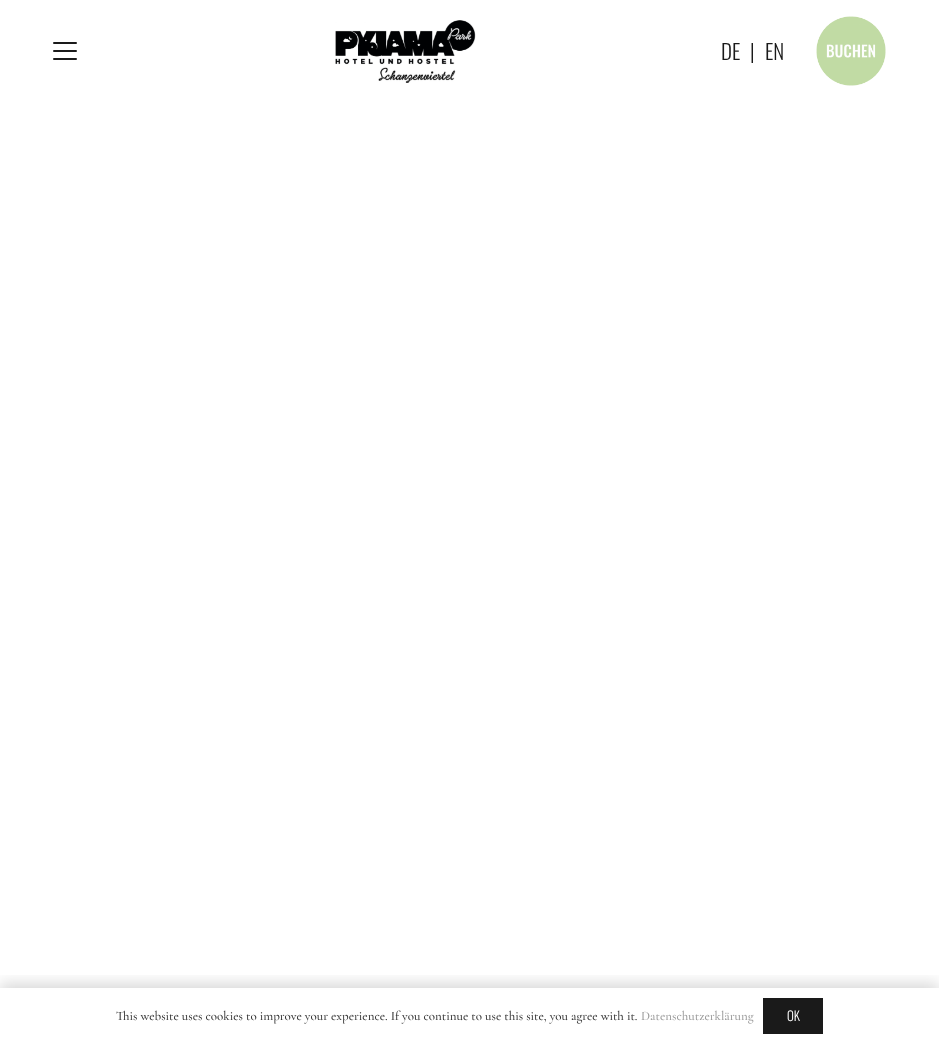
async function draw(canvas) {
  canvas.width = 939;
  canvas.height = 1044;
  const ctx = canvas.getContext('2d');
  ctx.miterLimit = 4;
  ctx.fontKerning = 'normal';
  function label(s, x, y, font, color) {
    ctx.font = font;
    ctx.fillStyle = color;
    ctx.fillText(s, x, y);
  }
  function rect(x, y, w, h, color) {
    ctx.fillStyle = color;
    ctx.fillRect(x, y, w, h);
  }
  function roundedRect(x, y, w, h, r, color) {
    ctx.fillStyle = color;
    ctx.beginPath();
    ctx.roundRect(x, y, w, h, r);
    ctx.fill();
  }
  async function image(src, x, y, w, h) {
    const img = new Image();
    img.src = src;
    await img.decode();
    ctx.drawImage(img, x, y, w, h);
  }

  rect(0, 0, 939, 1044, '#fff');
  roundedRect(53, 50, 24, 2, 1, '#1a1a1a');
  roundedRect(53, 42, 24, 2, 1, '#1a1a1a');
  roundedRect(53, 58, 24, 2, 1, '#1a1a1a');
  await image('assets/img1.png', 335, 20, 141, 63);
  label('DE', 721, 60, '300 21px Oswald', '#1a1a1a');
  label('|', 750, 60, '300 21px Oswald', '#1a1a1a');
  label('EN', 765, 60, '300 21px Oswald', '#1a1a1a');
  await image('assets/img2.png', 816, 16, 70, 70);
  ctx.save();
  ctx.beginPath();
  ctx.rect(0, 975, 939, 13);
  ctx.clip();
  ctx.fillStyle = '#00000026';
  ctx.filter = 'blur(7.5px)';
  ctx.beginPath();
  ctx.rect(0, 983, 939, 56);
  ctx.fill();
  ctx.filter = 'none';
  ctx.restore();
  label('This website uses cookies to improve your experience. If you continue to use this site, you agree with it.', 116, 1020, '500 13px Cormorant Garamond', '#333');
  label('Datenschutzerklärung', 641, 1020, '500 13px Cormorant Garamond', '#999');
  rect(763, 998, 60, 36, '#1a1a1a');
  label('OK', 787, 1021, '300 13px Oswald', '#fff');
}

draw(document.querySelector('canvas'));
